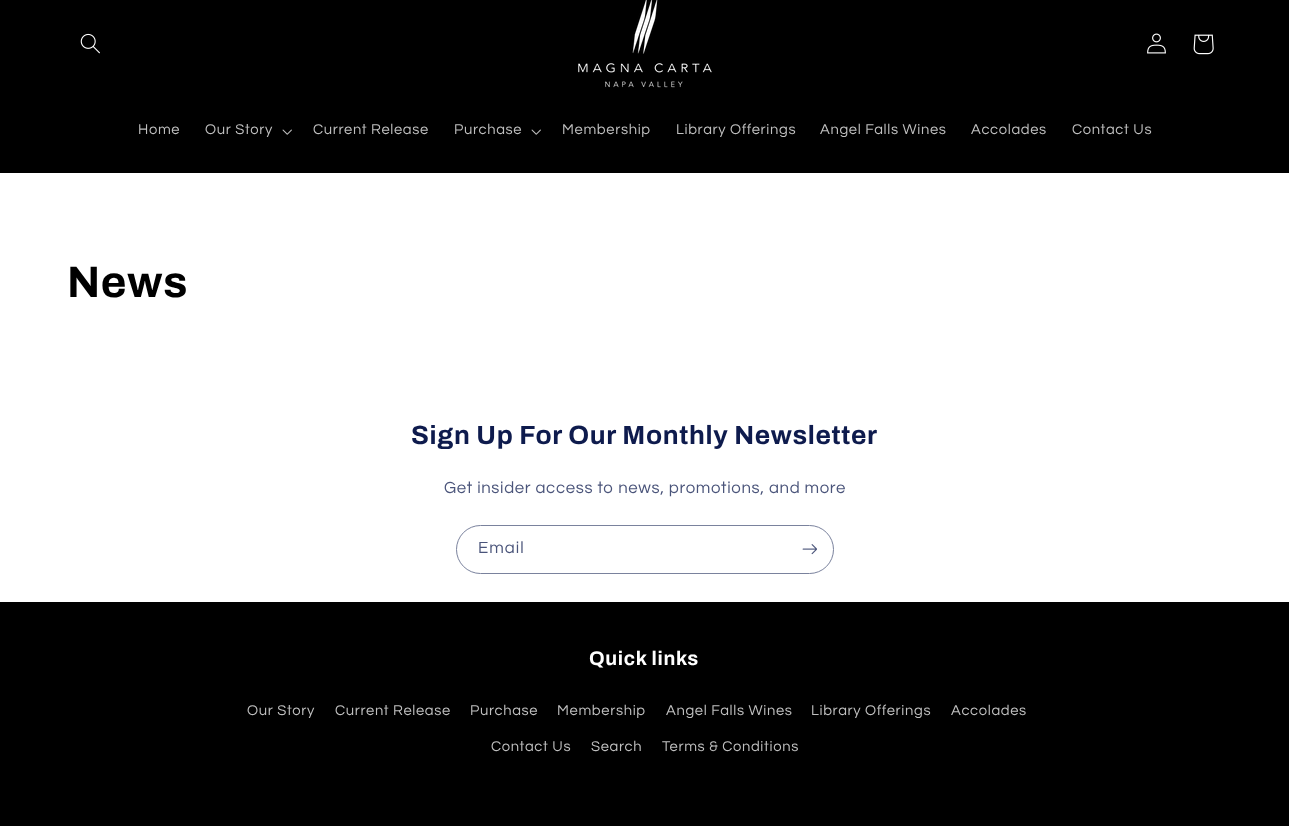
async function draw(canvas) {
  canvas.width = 1289;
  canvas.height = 826;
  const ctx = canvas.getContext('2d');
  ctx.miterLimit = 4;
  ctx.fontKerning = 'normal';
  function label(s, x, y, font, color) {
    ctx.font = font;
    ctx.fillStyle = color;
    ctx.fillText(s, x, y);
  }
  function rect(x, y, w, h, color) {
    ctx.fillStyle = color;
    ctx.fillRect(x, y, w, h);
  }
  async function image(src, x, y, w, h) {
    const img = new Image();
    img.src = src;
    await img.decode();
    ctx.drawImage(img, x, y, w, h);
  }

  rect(0, 0, 1289, 826, '#fff');
  rect(0, 0, 1289, 173, '#000');
  await image('assets/img1.png', 80, 33, 20, 21);
  await image('assets/img2.png', 578, 0, 134, 88);
  await image('assets/img3.png', 1147, 33, 19, 21);
  await image('assets/img4.png', 1193, 34, 21, 21);
  ctx.letterSpacing = '0.65px';
  label('Home', 138, 134, '14.75px Questrial', '#bfbfbf');
  label('Our Story', 205, 134, '14.75px Questrial', '#bfbfbf');
  await image('assets/img5.png', 282, 129, 10, 6);
  label('Current Release', 313, 134, '14.75px Questrial', '#bfbfbf');
  label('Purchase', 454, 134, '14.75px Questrial', '#bfbfbf');
  await image('assets/img5.png', 531, 129, 10, 6);
  label('Membership', 562, 134, '14.75px Questrial', '#bfbfbf');
  label('Library Offerings', 676, 134, '14.75px Questrial', '#bfbfbf');
  label('Angel Falls Wines', 820, 134, '14.75px Questrial', '#bfbfbf');
  label('Accolades', 971, 134, '14.75px Questrial', '#bfbfbf');
  label('Contact Us', 1072, 134, '14.75px Questrial', '#bfbfbf');
  label('News', 67, 297, 'bold 44px Archivo', '#000');
  label('Sign Up For Our Monthly Newsletter', 411, 444, 'bold 26.4px Archivo', '#0e1b4d');
  label('Get insider access to news, promotions, and more', 444, 493, '16.8px Questrial', '#4a547a');
  ctx.beginPath();
  ctx.roundRect(456.5, 525.5, 377, 48, 24);
  ctx.strokeStyle = '#7a829d';
  ctx.stroke();
  ctx.letterSpacing = '1px';
  label('Email', 478, 553, '16.8px Questrial', '#4a547a');
  await image('assets/img6.png', 802, 544, 15, 11);
  rect(0, 602, 1289, 224, '#000');
  ctx.letterSpacing = '0.65px';
  label('Quick links', 589, 665, 'bold 19.75px Archivo', '#fff');
  label('Our Story', 247, 715, '14.75px Questrial', '#bfbfbf');
  label('Current Release', 335, 715, '14.75px Questrial', '#bfbfbf');
  label('Purchase', 470, 715, '14.75px Questrial', '#bfbfbf');
  label('Membership', 557, 715, '14.75px Questrial', '#bfbfbf');
  label('Angel Falls Wines', 666, 715, '14.75px Questrial', '#bfbfbf');
  label('Library Offerings', 811, 715, '14.75px Questrial', '#bfbfbf');
  label('Accolades', 951, 715, '14.75px Questrial', '#bfbfbf');
  label('Contact Us', 491, 751, '14.75px Questrial', '#bfbfbf');
  label('Search', 591, 751, '14.75px Questrial', '#bfbfbf');
  label('Terms & Conditions', 662, 751, '14.75px Questrial', '#bfbfbf');
}

draw(document.querySelector('canvas'));
